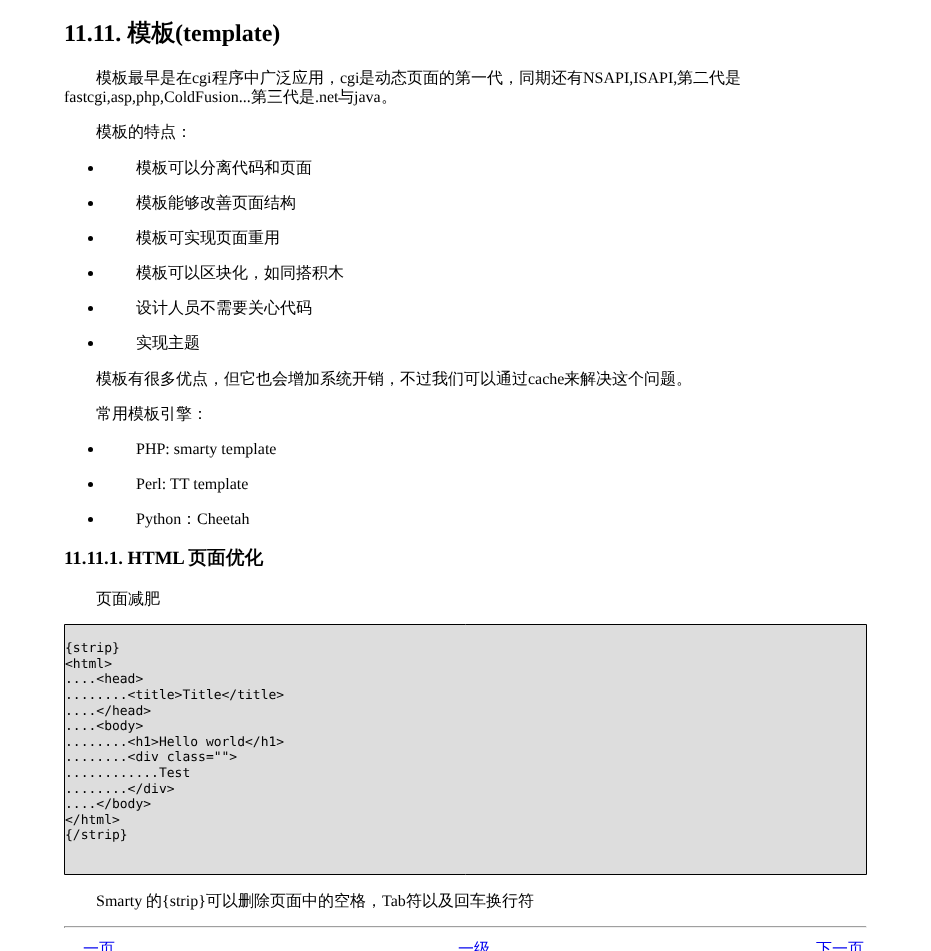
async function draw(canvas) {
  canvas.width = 931;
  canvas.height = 951;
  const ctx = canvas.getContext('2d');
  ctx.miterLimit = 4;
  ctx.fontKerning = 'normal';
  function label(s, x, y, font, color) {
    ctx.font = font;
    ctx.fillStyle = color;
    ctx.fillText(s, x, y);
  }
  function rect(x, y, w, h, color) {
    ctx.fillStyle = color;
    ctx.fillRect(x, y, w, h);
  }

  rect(0, 0, 931, 951, '#fff');
  label('11.11.', 64, 41, 'bold 24px Liberation Serif', '#000');
  label('模板', 127, 41, 'bold 24px WenQuanYi Zen Hei', '#000');
  label('(template)', 175, 41, 'bold 24px Liberation Serif', '#000');
  label('模板最早是在', 96, 83, '500 16px WenQuanYi Zen Hei', '#000');
  label('cgi', 192, 83, '16px Liberation Serif', '#000');
  label('程序中广泛应用，', 212, 83, '500 16px WenQuanYi Zen Hei', '#000');
  label('cgi', 340, 83, '16px Liberation Serif', '#000');
  label('是动态页面的第一代，同期还有', 359, 83, '500 16px WenQuanYi Zen Hei', '#000');
  label('NSAPI,ISAPI,', 583, 83, '16px Liberation Serif', '#000');
  label('第二代是', 677, 83, '500 16px WenQuanYi Zen Hei', '#000');
  label('fastcgi,asp,php,ColdFusion...', 64, 102, '16px Liberation Serif', '#000');
  label('第三代是', 251, 102, '500 16px WenQuanYi Zen Hei', '#000');
  label('.net', 315, 102, '16px Liberation Serif', '#000');
  label('与', 338, 102, '500 16px WenQuanYi Zen Hei', '#000');
  label('java', 354, 102, '16px Liberation Serif', '#000');
  label('。', 381, 102, '500 16px WenQuanYi Zen Hei', '#000');
  label('模板的特点：', 96, 137, '500 16px WenQuanYi Zen Hei', '#000');
  ctx.beginPath();
  ctx.arc(90.5, 168.5, 2.5, 0, 2 * Math.PI);
  ctx.fill();
  label('模板可以分离代码和页面', 136, 173, '500 16px WenQuanYi Zen Hei', '#000');
  ctx.beginPath();
  ctx.arc(90.5, 203.5, 2.5, 0, 2 * Math.PI);
  ctx.fill();
  label('模板能够改善页面结构', 136, 208, '500 16px WenQuanYi Zen Hei', '#000');
  ctx.beginPath();
  ctx.arc(90.5, 238.5, 2.5, 0, 2 * Math.PI);
  ctx.fill();
  label('模板可实现页面重用', 136, 243, '500 16px WenQuanYi Zen Hei', '#000');
  ctx.beginPath();
  ctx.arc(90.5, 273.5, 2.5, 0, 2 * Math.PI);
  ctx.fill();
  label('模板可以区块化，如同搭积木', 136, 278, '500 16px WenQuanYi Zen Hei', '#000');
  ctx.beginPath();
  ctx.arc(90.5, 308.5, 2.5, 0, 2 * Math.PI);
  ctx.fill();
  label('设计人员不需要关心代码', 136, 313, '500 16px WenQuanYi Zen Hei', '#000');
  ctx.beginPath();
  ctx.arc(90.5, 343.5, 2.5, 0, 2 * Math.PI);
  ctx.fill();
  label('实现主题', 136, 348, '500 16px WenQuanYi Zen Hei', '#000');
  label('模板有很多优点，但它也会增加系统开销，不过我们可以通过', 96, 384, '500 16px WenQuanYi Zen Hei', '#000');
  label('cache', 528, 384, '16px Liberation Serif', '#000');
  label('来解决这个问题。', 564, 384, '500 16px WenQuanYi Zen Hei', '#000');
  label('常用模板引擎：', 96, 419, '500 16px WenQuanYi Zen Hei', '#000');
  ctx.beginPath();
  ctx.arc(90.5, 449.5, 2.5, 0, 2 * Math.PI);
  ctx.fill();
  label('PHP: smarty template', 136, 454, '16px Liberation Serif', '#000');
  ctx.beginPath();
  ctx.arc(90.5, 484.5, 2.5, 0, 2 * Math.PI);
  ctx.fill();
  label('Perl: TT template', 136, 489, '16px Liberation Serif', '#000');
  ctx.beginPath();
  ctx.arc(90.5, 519.5, 2.5, 0, 2 * Math.PI);
  ctx.fill();
  label('Python', 136, 524, '16px Liberation Serif', '#000');
  label('：', 181, 524, '500 16px WenQuanYi Zen Hei', '#000');
  label('Cheetah', 197, 524, '16px Liberation Serif', '#000');
  label('11.11.1. HTML', 64, 564, 'bold 18.75px Liberation Serif', '#000');
  label('页面优化', 188, 564, 'bold 18.75px WenQuanYi Zen Hei', '#000');
  label('页面减肥', 96, 604, '500 16px WenQuanYi Zen Hei', '#000');
  ctx.fillStyle = '#ddd';
  ctx.beginPath();
  ctx.rect(64.5, 624.5, 802, 250);
  ctx.fill();
  ctx.strokeStyle = '#000';
  ctx.stroke();
  label('{strip}', 65, 652, '13px DejaVu Sans Mono', '#000');
  label('<html>', 65, 668, '13px DejaVu Sans Mono', '#000');
  label('....<head>', 65, 683, '13px DejaVu Sans Mono', '#000');
  label('........<title>Title<\/title>', 65, 699, '13px DejaVu Sans Mono', '#000');
  label('....<\/head>', 65, 715, '13px DejaVu Sans Mono', '#000');
  label('....<body>', 65, 730, '13px DejaVu Sans Mono', '#000');
  label('........<h1>Hello world<\/h1>', 65, 746, '13px DejaVu Sans Mono', '#000');
  label('........<div class="">', 65, 761, '13px DejaVu Sans Mono', '#000');
  label('............Test', 65, 777, '13px DejaVu Sans Mono', '#000');
  label('........<\/div>', 65, 793, '13px DejaVu Sans Mono', '#000');
  label('....<\/body>', 65, 808, '13px DejaVu Sans Mono', '#000');
  label('<\/html>', 65, 824, '13px DejaVu Sans Mono', '#000');
  label('{/strip}', 65, 839, '13px DejaVu Sans Mono', '#000');
  label('Smarty', 96, 906, '16px Liberation Serif', '#000');
  label('的', 146, 906, '500 16px WenQuanYi Zen Hei', '#000');
  label('{strip}', 162, 906, '16px Liberation Serif', '#000');
  label('可以删除页面中的空格，', 206, 906, '500 16px WenQuanYi Zen Hei', '#000');
  label('Tab', 382, 906, '16px Liberation Serif', '#000');
  label('符以及回车换行符', 406, 906, '500 16px WenQuanYi Zen Hei', '#000');
  rect(64, 926, 803, 1, '#9f9f9f');
  rect(866, 926, 1, 2, '#eee');
  rect(64, 927, 803, 1, '#eee');
  rect(64, 926, 1, 2, '#9f9f9f');
  label('一页', 83, 954, '500 16px WenQuanYi Zen Hei', '#00e');
  label('一级', 458, 954, '500 16px WenQuanYi Zen Hei', '#00e');
  label('下一页', 816, 954, '500 16px WenQuanYi Zen Hei', '#00e');
}

draw(document.querySelector('canvas'));
